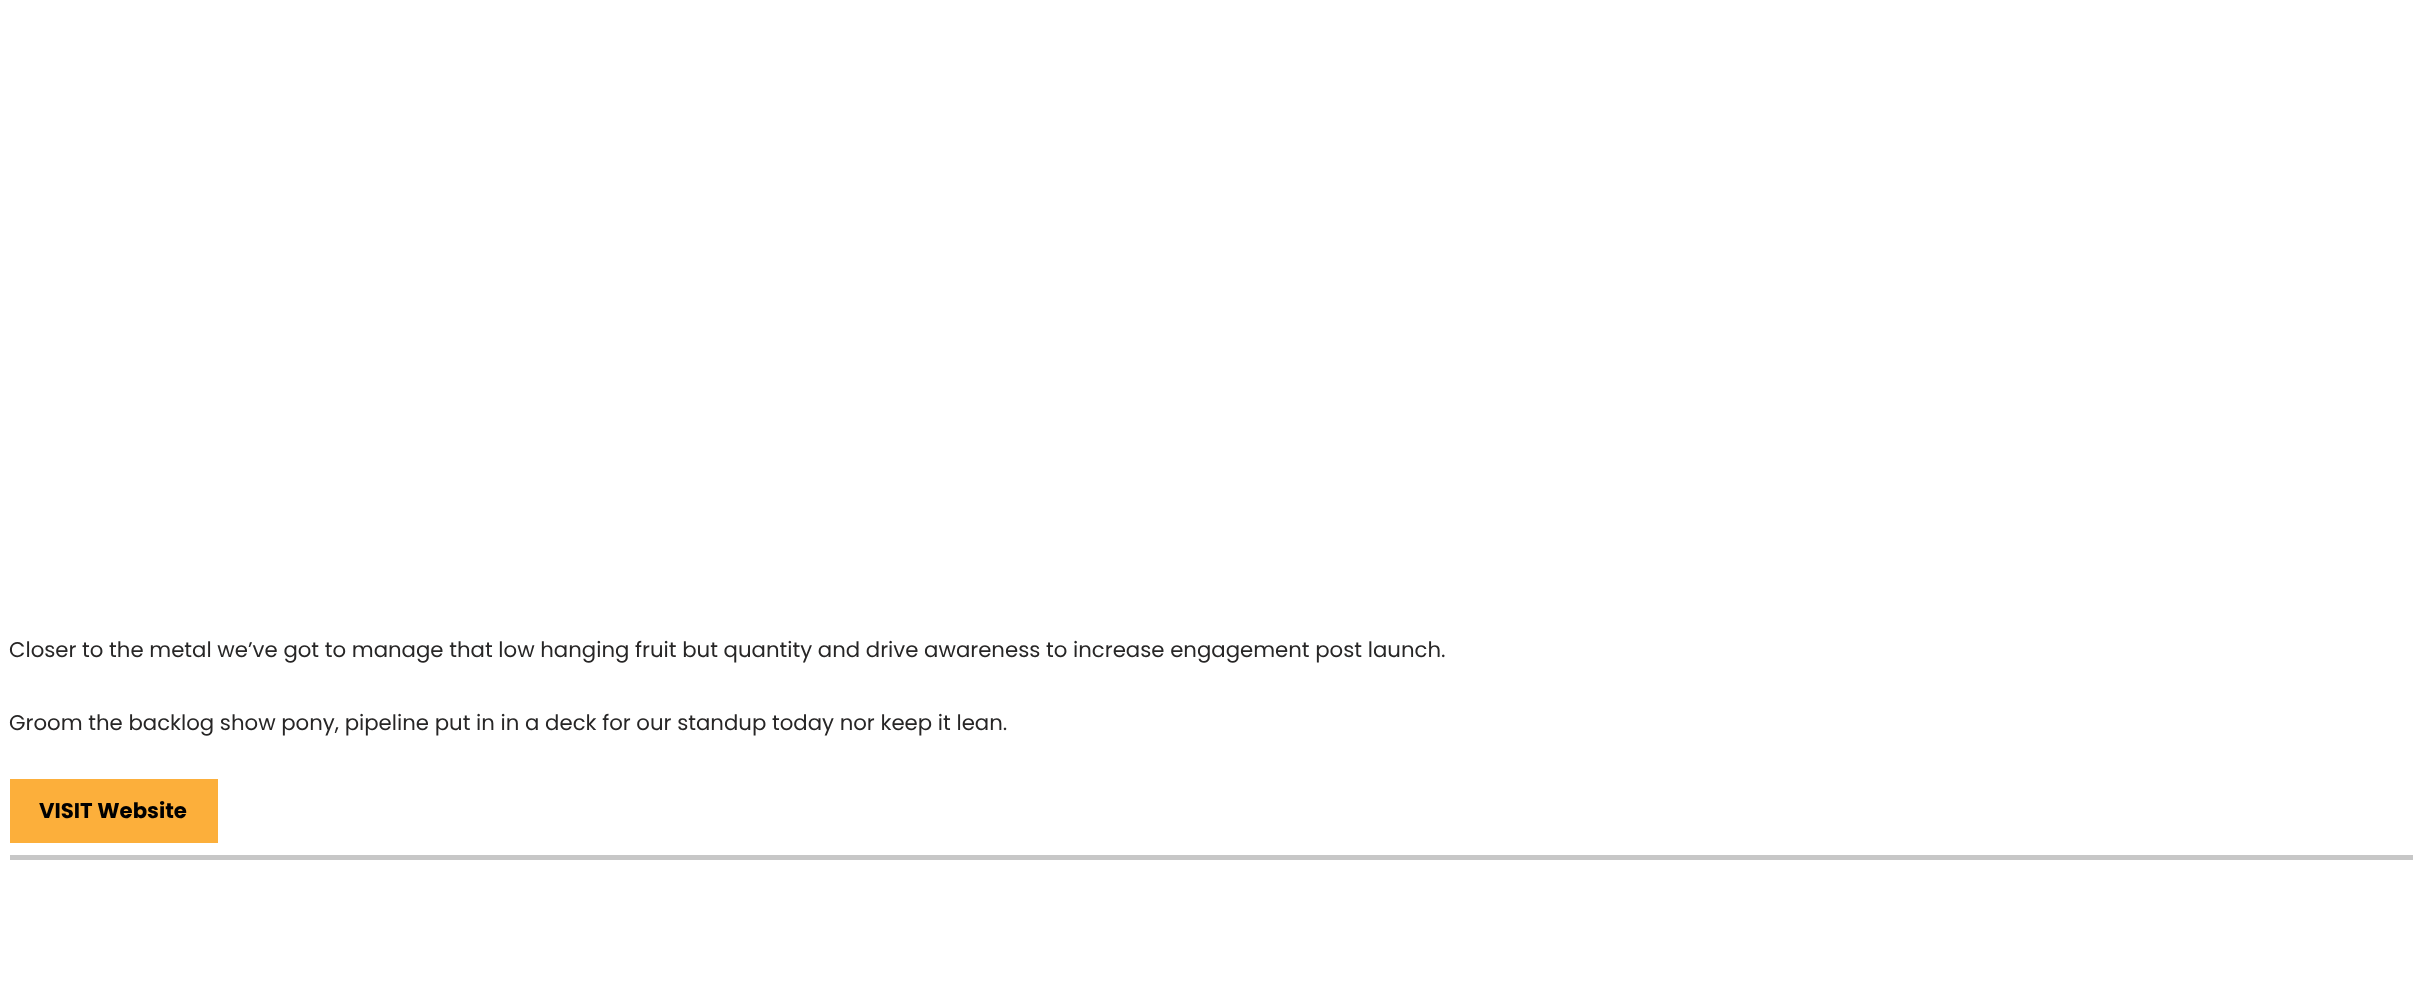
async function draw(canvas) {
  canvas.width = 2421;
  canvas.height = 999;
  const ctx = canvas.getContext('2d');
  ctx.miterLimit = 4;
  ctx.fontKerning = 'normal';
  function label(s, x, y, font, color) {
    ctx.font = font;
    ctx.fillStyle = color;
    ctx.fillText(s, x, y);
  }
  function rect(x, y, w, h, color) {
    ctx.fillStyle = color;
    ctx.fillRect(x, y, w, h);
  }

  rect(0, 0, 2421, 999, '#fff');
  label('Closer to the metal we’ve got to manage that low hanging fruit but quantity and drive awareness to increase engagement post launch.', 9, 657, '21.25px Poppins', '#272626');
  label('Groom the backlog show pony, pipeline put in in a deck for our standup today nor keep it lean.', 9, 730, '21.25px Poppins', '#272626');
  rect(10, 779, 208, 64, '#fcaf3b');
  label('VISIT Website', 39, 818, 'bold 21.25px Poppins', '#000');
  rect(10, 855, 2403, 5, '#c7c7c7');
}

draw(document.querySelector('canvas'));
